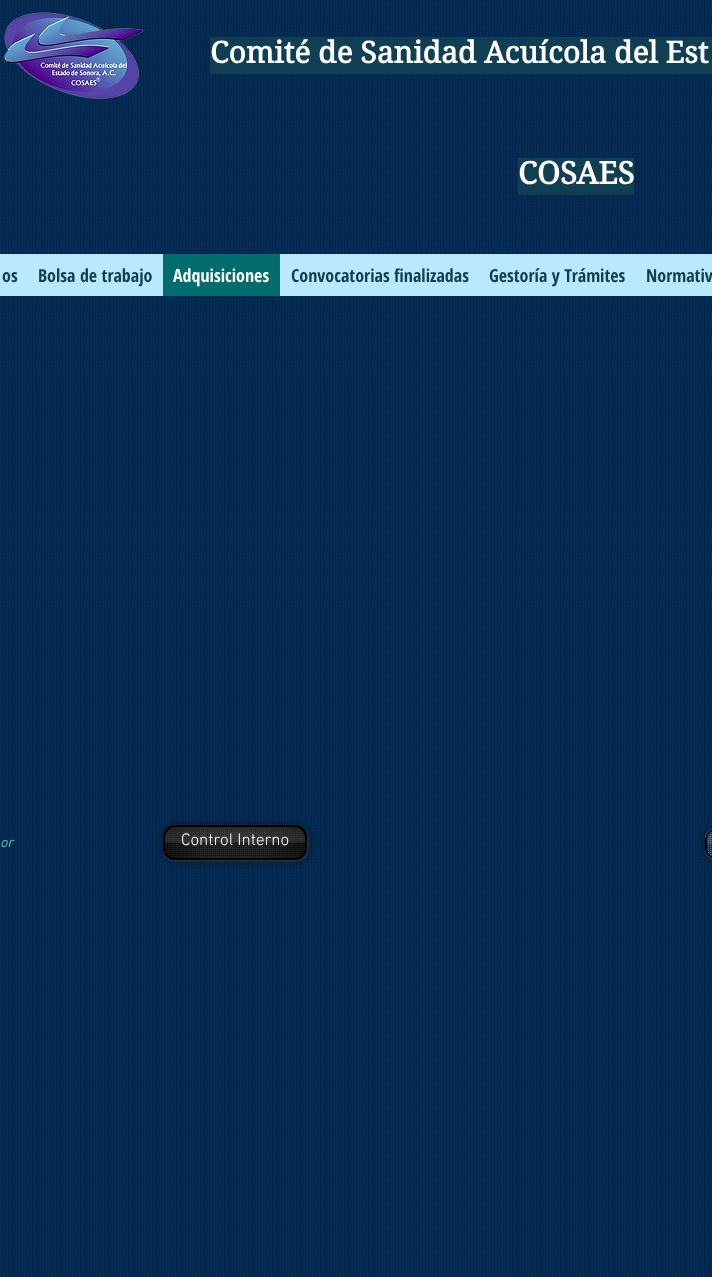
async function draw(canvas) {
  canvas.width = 712;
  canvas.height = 1277;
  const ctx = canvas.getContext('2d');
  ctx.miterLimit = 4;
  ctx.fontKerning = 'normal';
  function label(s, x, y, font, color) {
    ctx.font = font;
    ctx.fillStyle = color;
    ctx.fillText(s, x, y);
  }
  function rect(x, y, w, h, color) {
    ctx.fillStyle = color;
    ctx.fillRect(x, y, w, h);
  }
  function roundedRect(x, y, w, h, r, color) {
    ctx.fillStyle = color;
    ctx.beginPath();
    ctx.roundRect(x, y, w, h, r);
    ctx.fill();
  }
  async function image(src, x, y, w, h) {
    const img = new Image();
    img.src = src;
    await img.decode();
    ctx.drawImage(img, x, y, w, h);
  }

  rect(0, 0, 712, 1277, '#052f5b');
  await image('assets/img1.png', 0, 0, 712, 1277);
  await image('assets/img2.png', 3, 12, 141, 87);
  rect(210, 37, 502, 37, '#103f54');
  label('Comité de Sanidad Acuícola del Est', 210, 63, 'bold 30px "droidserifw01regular"', '#fff');
  rect(518, 158, 116, 37, '#103f54');
  label('COSAES', 518, 184, 'bold 31px "droidserifw01regular"', '#fff');
  rect(0, 254, 712, 42, '#bae9ff');
  label('os', 2, 282, 'bold 18px Open Sans Condensed', '#103f54');
  label('Bolsa de trabajo', 38, 282, 'bold 18px Open Sans Condensed', '#103f54');
  rect(163, 254, 117, 42, '#006c6d');
  label('Adquisiciones', 173, 282, 'bold 18px Open Sans Condensed', '#fff');
  label('Convocatorias finalizadas', 291, 282, 'bold 18px Open Sans Condensed', '#103f54');
  label('Gestoría y Trámites', 489, 282, 'bold 18px Open Sans Condensed', '#103f54');
  label('Normativ', 646, 282, 'bold 18px Open Sans Condensed', '#103f54');
  label('or', 0, 847, 'italic bold 14px "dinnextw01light"', '#41baae');
  ctx.fillStyle = '#ffffff4d';
  ctx.filter = 'blur(1.5px)';
  ctx.beginPath();
  ctx.roundRect(164, 826, 144, 35, 12);
  ctx.fill();
  ctx.filter = 'none';
  ctx.fillStyle = '#00000099';
  ctx.filter = 'blur(3px)';
  ctx.beginPath();
  ctx.roundRect(163, 825, 146, 37, 13);
  ctx.fill();
  ctx.filter = 'none';
  roundedRect(163, 825, 144, 35, 12, '#2f2e2e');
  await image('assets/img3.png', 163, 825, 144, 35);
  ctx.beginPath();
  ctx.roundRect(164, 826, 142, 33, 11);
  ctx.strokeStyle = '#000';
  ctx.lineWidth = 2;
  ctx.stroke();
  await image('assets/img4.png', 165, 827, 34, 31);
  await image('assets/img6.png', 270, 827, 35, 31);
  label('Control Interno', 181, 845, '300 17px "dinnextw01light"', '#fff');
  await image('assets/img5.png', 165, 827, 140, 16);
  ctx.fillStyle = '#ffffff4d';
  ctx.filter = 'blur(1.5px)';
  ctx.beginPath();
  ctx.roundRect(706, 830, 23, 30, 12);
  ctx.fill();
  ctx.filter = 'none';
  ctx.fillStyle = '#00000099';
  ctx.filter = 'blur(3px)';
  ctx.beginPath();
  ctx.roundRect(705, 829, 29, 32, 13);
  ctx.fill();
  ctx.filter = 'none';
  roundedRect(705, 829, 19, 30, 12, '#3d9be9');
  await image('assets/img7.png', 705, 830, 7, 28);
  ctx.beginPath();
  ctx.roundRect(706, 830, 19, 28, 11);
  ctx.stroke();
  await image('assets/img8.png', 707, 833, 5, 22);
  await image('assets/img9.png', 707, 833, 5, 11);
}

draw(document.querySelector('canvas'));
